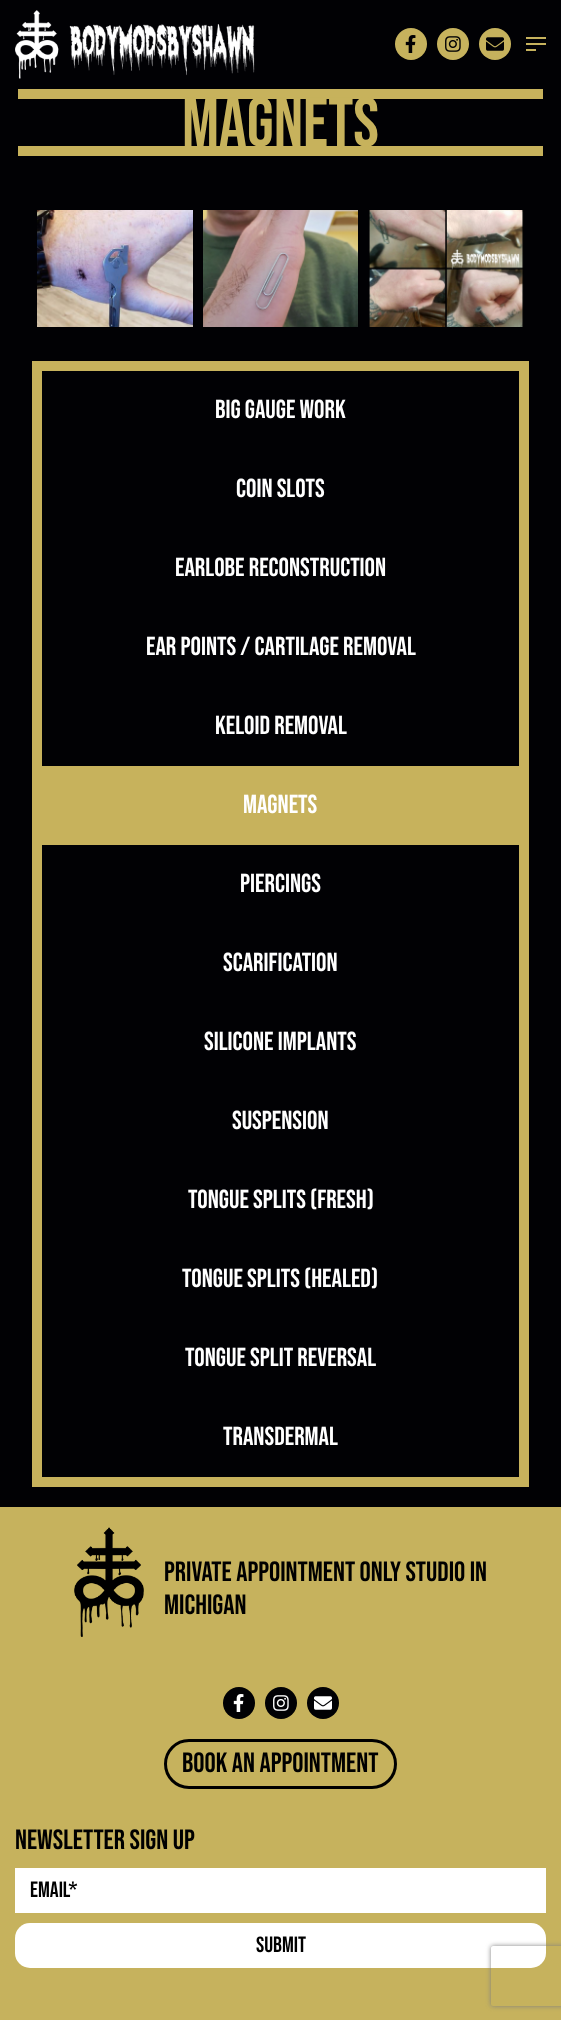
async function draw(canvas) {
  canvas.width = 561;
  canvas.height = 2020;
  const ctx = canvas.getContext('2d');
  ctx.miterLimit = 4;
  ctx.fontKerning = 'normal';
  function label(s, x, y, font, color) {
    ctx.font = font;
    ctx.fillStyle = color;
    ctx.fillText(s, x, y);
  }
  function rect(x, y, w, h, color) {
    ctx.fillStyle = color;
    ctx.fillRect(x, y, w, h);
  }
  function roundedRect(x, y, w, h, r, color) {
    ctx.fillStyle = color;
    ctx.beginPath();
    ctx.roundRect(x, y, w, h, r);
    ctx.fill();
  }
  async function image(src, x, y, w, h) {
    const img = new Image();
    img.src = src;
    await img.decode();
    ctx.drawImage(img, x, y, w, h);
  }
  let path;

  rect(0, 0, 561, 2020, '#010104');
  await image('assets/img1.png', 15, 10, 240, 69);
  ctx.fillStyle = '#c6b25d';
  ctx.beginPath();
  ctx.arc(411, 44, 16, 0, 2 * Math.PI);
  ctx.fill();
  await image('assets/img2.png', 405, 35, 11, 18);
  ctx.beginPath();
  ctx.arc(453, 44, 16, 0, 2 * Math.PI);
  ctx.fill();
  await image('assets/img3.png', 445, 36, 16, 16);
  ctx.beginPath();
  ctx.arc(495, 44, 16, 0, 2 * Math.PI);
  ctx.fill();
  await image('assets/img4.png', 486, 37, 18, 14);
  rect(526, 37, 20, 2, '#c6b25d');
  rect(526, 43, 20, 2, '#c6b25d');
  rect(526, 49, 10, 2, '#c6b25d');
  rect(18, 89, 525, 10, '#c7b25c');
  rect(18, 146, 525, 10, '#c7b25c');
  label('Magnets', 182, 146, '69px Bebas Neue', '#c7b25c');
  await image('assets/img5.png', 37, 210, 156, 117);
  await image('assets/img6.png', 203, 210, 155, 117);
  await image('assets/img7.png', 369, 210, 155, 117);
  ctx.strokeStyle = '#c7b25c';
  ctx.lineWidth = 10;
  ctx.strokeRect(37, 366, 487, 1116);
  label('Big Gauge Work', 215, 418, '26px Bebas Neue', '#fff');
  label('Coin Slots', 236, 497, '26px Bebas Neue', '#fff');
  label('Earlobe Reconstruction', 175, 576, '26px Bebas Neue', '#fff');
  label('Ear Points / Cartilage Removal', 146, 655, '26px Bebas Neue', '#fff');
  label('Keloid Removal', 215, 734, '26px Bebas Neue', '#fff');
  rect(42, 766, 477, 79, '#c7b25c');
  label('Magnets', 243, 813, '26px Bebas Neue', '#fff');
  label('Piercings', 240, 892, '26px Bebas Neue', '#fff');
  label('Scarification', 223, 971, '26px Bebas Neue', '#fff');
  label('Silicone Implants', 204, 1050, '26px Bebas Neue', '#fff');
  label('Suspension', 232, 1129, '26px Bebas Neue', '#fff');
  label('Tongue Splits (Fresh)', 188, 1208, '26px Bebas Neue', '#fff');
  label('Tongue Splits (Healed)', 182, 1287, '26px Bebas Neue', '#fff');
  label('Tongue Split Reversal', 185, 1366, '26px Bebas Neue', '#fff');
  label('Transdermal', 223, 1445, '26px Bebas Neue', '#fff');
  rect(0, 1507, 561, 513, '#c6b25d');
  await image('assets/img8.png', 74, 1527, 70, 110);
  label('Private Appointment Only Studio in', 164, 1581, '28px Bebas Neue', '#000');
  label('michigan', 164, 1614, '28px Bebas Neue', '#000');
  ctx.fillStyle = '#010104';
  ctx.beginPath();
  ctx.arc(239, 1703, 16, 0, 2 * Math.PI);
  ctx.fill();
  await image('assets/img9.png', 233, 1694, 11, 18);
  ctx.beginPath();
  ctx.arc(281, 1703, 16, 0, 2 * Math.PI);
  ctx.fill();
  await image('assets/img10.png', 273, 1695, 16, 16);
  ctx.beginPath();
  ctx.arc(323, 1703, 16, 0, 2 * Math.PI);
  ctx.fill();
  await image('assets/img11.png', 314, 1696, 18, 14);
  ctx.beginPath();
  ctx.roundRect(165.5, 1740.5, 230, 47, 23.5);
  ctx.strokeStyle = '#000';
  ctx.lineWidth = 3;
  ctx.stroke();
  label('BOOK an appointment', 182, 1772, '28px Bebas Neue', '#000');
  label('newsletter sign up', 15, 1849, '28px Bebas Neue', '#000');
  rect(15, 1868, 531, 45, '#fff');
  label('Email*', 30, 1897, '22px Bebas Neue', '#000');
  roundedRect(15, 1923, 531, 45, 15, '#fff');
  label('Submit', 256, 1952, '22px Bebas Neue', '#000');
  ctx.save();
  path = new Path2D('M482 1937H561V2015H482ZM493 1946H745C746 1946 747 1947 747 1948V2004C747 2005 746 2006 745 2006H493C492 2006 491 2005 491 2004V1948C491 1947 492 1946 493 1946Z');
  ctx.clip(path, 'evenodd');
  ctx.fillStyle = '#808080';
  ctx.filter = 'blur(2.5px)';
  ctx.beginPath();
  ctx.roundRect(491, 1946, 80, 60, 2);
  ctx.fill();
  ctx.filter = 'none';
  ctx.restore();
}

draw(document.querySelector('canvas'));
